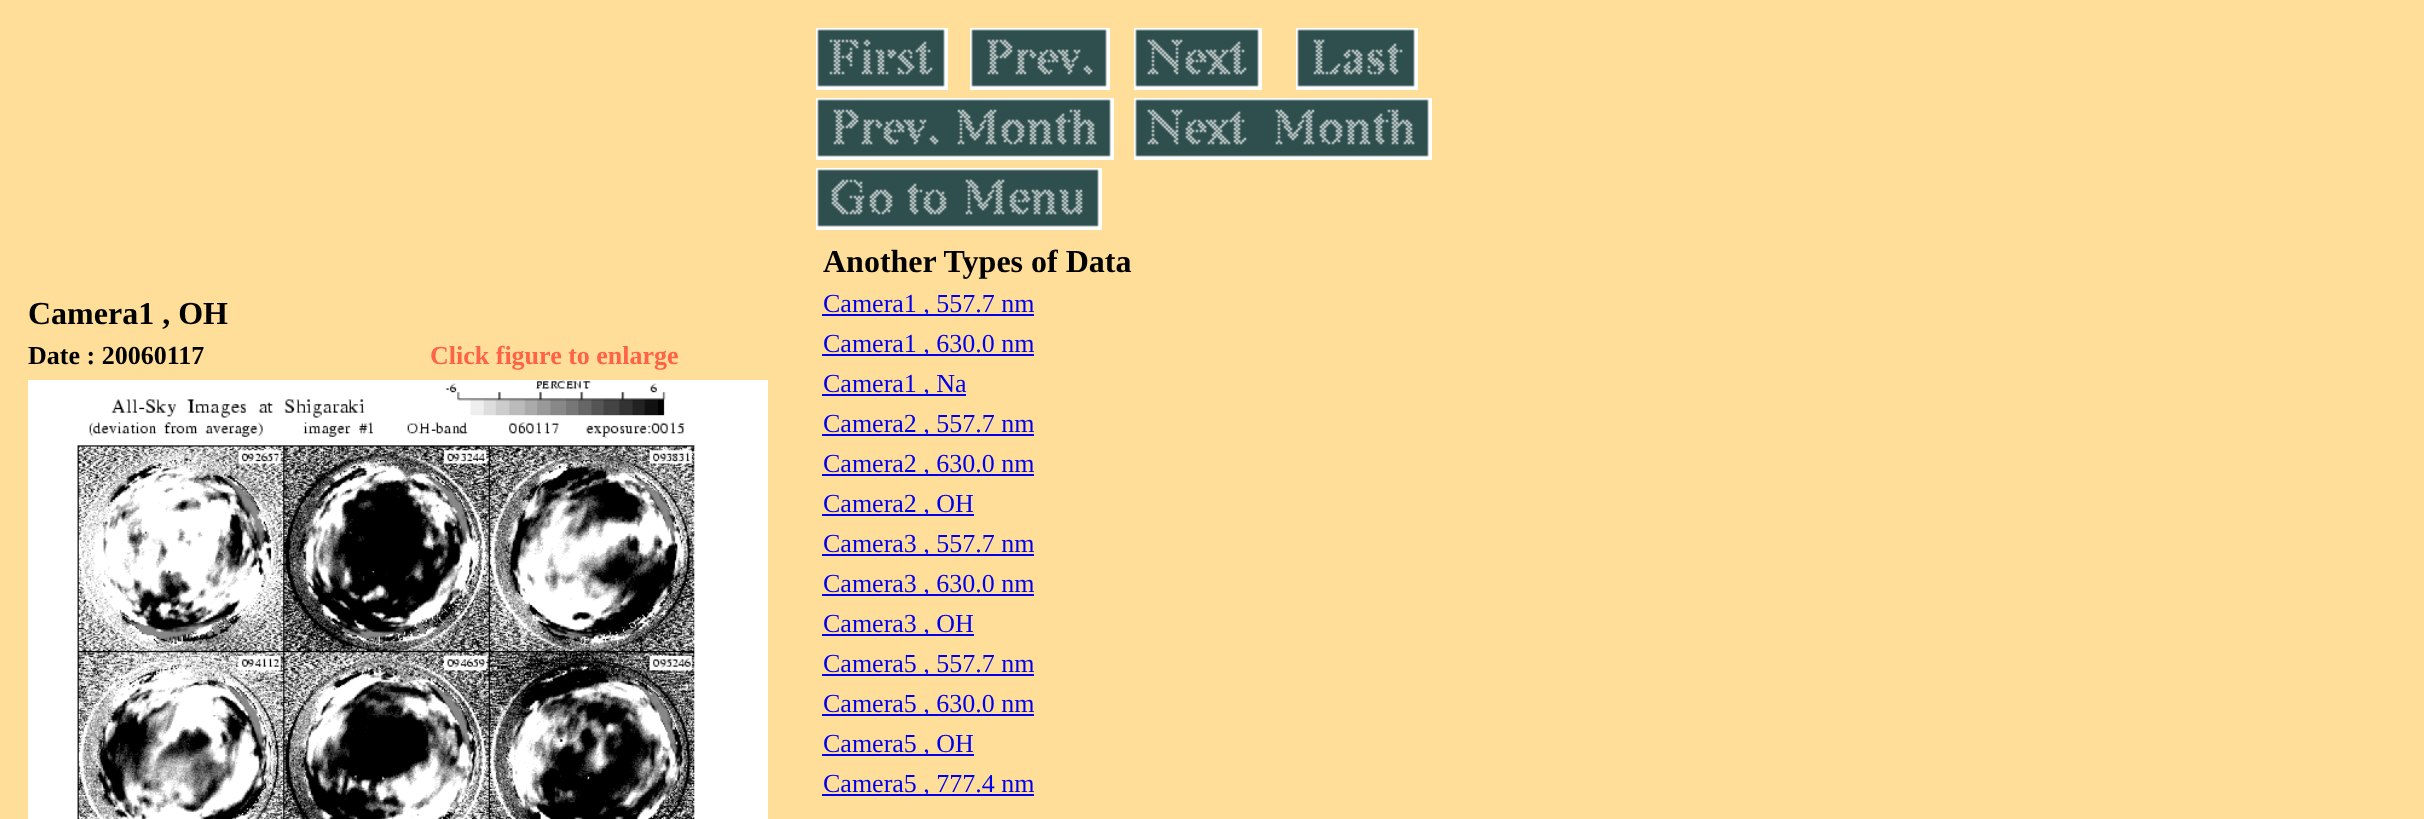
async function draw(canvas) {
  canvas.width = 2424;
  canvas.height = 819;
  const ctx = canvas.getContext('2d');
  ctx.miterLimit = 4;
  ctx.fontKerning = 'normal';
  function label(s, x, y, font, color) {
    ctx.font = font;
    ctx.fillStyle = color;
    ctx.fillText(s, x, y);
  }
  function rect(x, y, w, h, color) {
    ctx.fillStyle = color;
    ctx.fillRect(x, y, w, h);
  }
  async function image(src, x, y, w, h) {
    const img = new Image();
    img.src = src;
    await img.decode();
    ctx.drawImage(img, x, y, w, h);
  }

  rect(0, 0, 2424, 819, '#ffde99');
  label('Camera1 , OH', 28, 324, 'bold 32px Liberation Serif', '#000');
  label('Date : 20060117', 28, 364, 'bold 26px Liberation Serif', '#000');
  label('Click figure to enlarge', 430, 364, 'bold 26px Liberation Serif', '#ff6347');
  await image('assets/img1.png', 28, 380, 740, 439);
  await image('assets/img2.png', 816, 28, 132, 62);
  await image('assets/img3.png', 970, 28, 140, 62);
  await image('assets/img4.png', 1134, 28, 128, 62);
  await image('assets/img5.png', 1296, 28, 122, 62);
  await image('assets/img6.png', 816, 98, 298, 62);
  await image('assets/img7.png', 1134, 98, 298, 62);
  await image('assets/img8.png', 816, 168, 286, 62);
  label('Another Types of Data', 823, 272, 'bold 32px Liberation Serif', '#000');
  rect(822, 314, 212, 2, '#00e');
  label('Camera1 , 557.7 nm', 823, 312, '26px Liberation Serif', '#00e');
  rect(822, 354, 212, 2, '#00e');
  label('Camera1 , 630.0 nm', 823, 352, '26px Liberation Serif', '#00e');
  rect(822, 394, 144, 2, '#00e');
  label('Camera1 , Na', 823, 392, '26px Liberation Serif', '#00e');
  rect(822, 434, 212, 2, '#00e');
  label('Camera2 , 557.7 nm', 823, 432, '26px Liberation Serif', '#00e');
  rect(822, 474, 212, 2, '#00e');
  label('Camera2 , 630.0 nm', 823, 472, '26px Liberation Serif', '#00e');
  rect(822, 514, 152, 2, '#00e');
  label('Camera2 , OH', 823, 512, '26px Liberation Serif', '#00e');
  rect(822, 554, 212, 2, '#00e');
  label('Camera3 , 557.7 nm', 823, 552, '26px Liberation Serif', '#00e');
  rect(822, 594, 212, 2, '#00e');
  label('Camera3 , 630.0 nm', 823, 592, '26px Liberation Serif', '#00e');
  rect(822, 634, 152, 2, '#00e');
  label('Camera3 , OH', 823, 632, '26px Liberation Serif', '#00e');
  rect(822, 674, 212, 2, '#00e');
  label('Camera5 , 557.7 nm', 823, 672, '26px Liberation Serif', '#00e');
  rect(822, 714, 212, 2, '#00e');
  label('Camera5 , 630.0 nm', 823, 712, '26px Liberation Serif', '#00e');
  rect(822, 754, 152, 2, '#00e');
  label('Camera5 , OH', 823, 752, '26px Liberation Serif', '#00e');
  rect(822, 794, 212, 2, '#00e');
  label('Camera5 , 777.4 nm', 823, 792, '26px Liberation Serif', '#00e');
}

draw(document.querySelector('canvas'));
